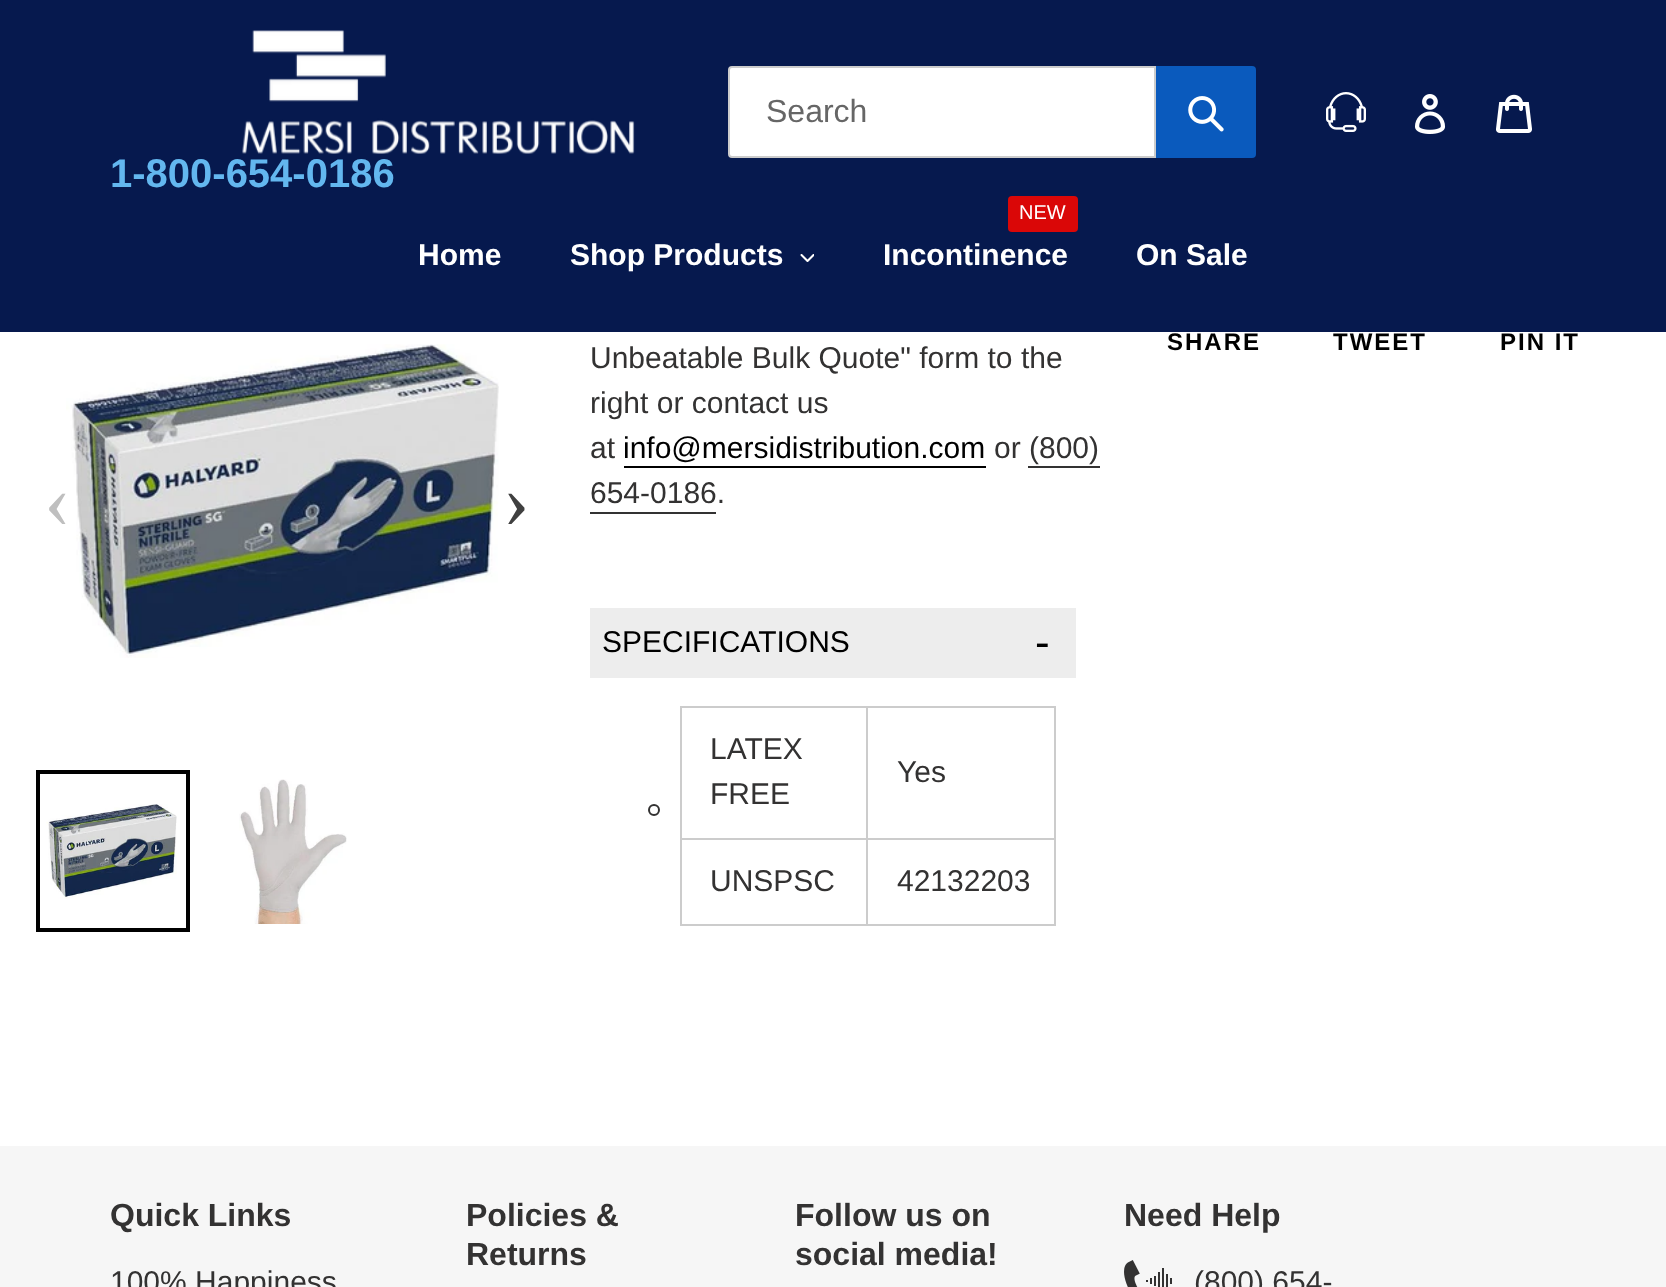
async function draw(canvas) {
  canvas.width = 1666;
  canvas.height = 1287;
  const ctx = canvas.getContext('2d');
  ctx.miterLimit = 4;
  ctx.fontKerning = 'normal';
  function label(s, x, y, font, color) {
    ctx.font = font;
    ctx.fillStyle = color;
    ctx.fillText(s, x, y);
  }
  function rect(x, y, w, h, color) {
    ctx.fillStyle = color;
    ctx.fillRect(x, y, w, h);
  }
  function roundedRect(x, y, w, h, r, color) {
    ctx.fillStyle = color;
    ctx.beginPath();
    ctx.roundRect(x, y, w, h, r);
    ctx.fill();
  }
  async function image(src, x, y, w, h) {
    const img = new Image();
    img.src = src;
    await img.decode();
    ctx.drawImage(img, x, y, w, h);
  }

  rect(0, 0, 1666, 1287, '#fff');
  rect(0, 0, 1666, 332, '#06194e');
  ctx.fillStyle = '#fff';
  ctx.beginPath();
  ctx.roundRect(729, 67, 426, 90, [3, 0, 0, 3]);
  ctx.fill();
  ctx.strokeStyle = '#ccc';
  ctx.lineWidth = 2;
  ctx.stroke();
  label('Search', 766, 122, '32px Liberation Sans', '#666');
  ctx.fillStyle = '#0a5abd';
  ctx.beginPath();
  ctx.roundRect(1156, 66, 100, 92, [0, 4, 4, 0]);
  ctx.fill();
  await image('assets/img1.png', 1188, 96, 36, 36);
  await image('assets/img2.png', 1326, 92, 40, 40);
  await image('assets/img3.png', 1415, 94, 31, 40);
  await image('assets/img4.png', 1496, 94, 36, 39);
  await image('assets/img5.png', 242, 30, 393, 124);
  label('1-800-654-0186', 110, 187, 'bold 40px Liberation Sans', '#63b7ef');
  label('Home', 418, 265, 'bold 30px Liberation Sans', '#fff');
  label('Shop Products', 570, 265, 'bold 30px Liberation Sans', '#fff');
  await image('assets/img6.png', 800, 254, 14, 8);
  roundedRect(1008, 196, 70, 36, 4, '#da0707');
  label('NEW', 1019, 219, '20px Liberation Sans', '#fff');
  label('Incontinence', 883, 265, 'bold 30px Liberation Sans', '#fff');
  label('On Sale', 1136, 265, 'bold 30px Liberation Sans', '#fff');
  ctx.letterSpacing = '2px';
  label('SHARE', 1167, 350, 'bold 24px Liberation Sans', '#000');
  label('TWEET', 1333, 350, 'bold 24px Liberation Sans', '#000');
  label('PIN IT', 1500, 350, 'bold 24px Liberation Sans', '#000');
  ctx.letterSpacing = '0px';
  label('‹', 44, 527, '80px Liberation Serif', '#bfbfbf');
  await image('assets/img7.png', 66, 344, 433, 314);
  label('›', 503, 527, '80px Liberation Serif', '#404040');
  ctx.strokeStyle = '#000';
  ctx.lineWidth = 4;
  ctx.strokeRect(38, 772, 150, 158);
  await image('assets/img8.png', 46, 804, 131, 95);
  await image('assets/img9.png', 239, 779, 108, 145);
  label('Unbeatable Bulk Quote" form to the', 590, 368, '30px Liberation Sans', '#333232');
  label('right or contact us', 590, 413, '30px Liberation Sans', '#333232');
  label('at', 590, 458, '30px Liberation Sans', '#333232');
  label('info@mersidistribution.com', 623, 458, '30px Liberation Sans', '#000');
  rect(624, 466, 362, 2, '#000');
  label('or (800)', 994, 458, '30px Liberation Sans', '#333232');
  label('654-0186.', 590, 503, '30px Liberation Sans', '#333232');
  rect(1028, 466, 72, 2, '#333232');
  rect(590, 512, 126, 2, '#333232');
  rect(590, 608, 486, 70, '#ededed');
  label('SPECIFICATIONS', 602, 652, '30px Liberation Sans', '#000');
  label('-', 1035, 657, '44px Liberation Sans', '#000');
  ctx.beginPath();
  ctx.arc(654, 810, 5, 0, 2 * Math.PI);
  ctx.strokeStyle = '#333232';
  ctx.lineWidth = 2;
  ctx.stroke();
  rect(866, 706, 190, 2, '#ccc');
  rect(866, 838, 190, 2, '#ccc');
  rect(1054, 838, 2, 88, '#ccc');
  rect(866, 924, 190, 2, '#ccc');
  rect(866, 838, 2, 88, '#ccc');
  rect(680, 838, 188, 2, '#ccc');
  rect(866, 706, 2, 134, '#ccc');
  rect(680, 706, 188, 2, '#ccc');
  rect(680, 924, 188, 2, '#ccc');
  rect(680, 838, 2, 88, '#ccc');
  rect(680, 706, 2, 134, '#ccc');
  label('LATEX', 710, 759, '30px Liberation Sans', '#333232');
  label('FREE', 710, 804, '30px Liberation Sans', '#333232');
  rect(1054, 706, 2, 134, '#ccc');
  label('Yes', 897, 782, '30px Liberation Sans', '#333232');
  label('UNSPSC', 710, 891, '30px Liberation Sans', '#333232');
  label('42132203', 897, 891, '30px Liberation Sans', '#333232');
  rect(0, 1146, 1666, 141, '#f6f6f6');
  label('Quick Links', 110, 1226, 'bold 32px Liberation Sans', '#333232');
  label('100% Happiness', 110, 1292, '30px Liberation Sans', '#333232');
  label('Policies &', 466, 1226, 'bold 32px Liberation Sans', '#333232');
  label('Returns', 466, 1265, 'bold 32px Liberation Sans', '#333232');
  label('Follow us on', 795, 1226, 'bold 32px Liberation Sans', '#333232');
  label('social media!', 795, 1265, 'bold 32px Liberation Sans', '#333232');
  label('Need Help', 1124, 1226, 'bold 32px Liberation Sans', '#333232');
  await image('assets/img10.png', 1124, 1260, 48, 27);
  label('(800) 654-', 1194, 1292, '30px Liberation Sans', '#333232');
}

draw(document.querySelector('canvas'));
